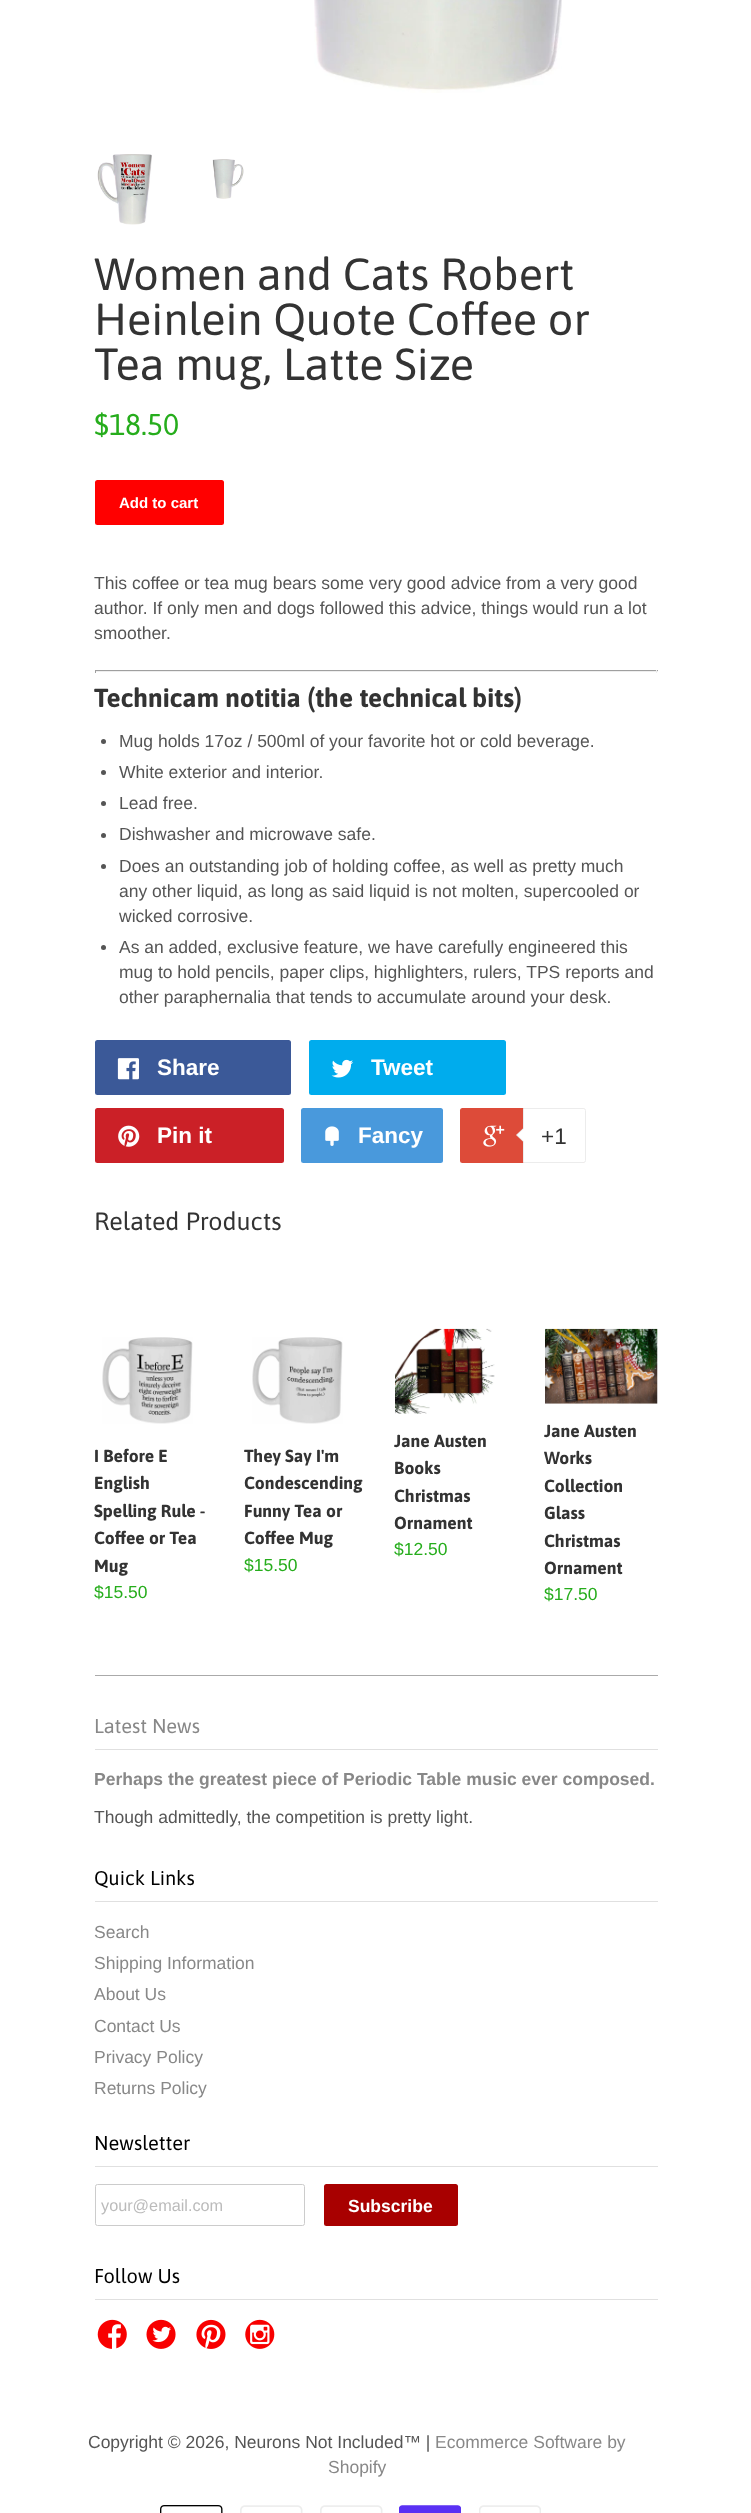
async function draw(canvas) {
  canvas.width = 751;
  canvas.height = 2513;
  const ctx = canvas.getContext('2d');
  ctx.miterLimit = 4;
  ctx.fontKerning = 'normal';
  function label(s, x, y, font, color) {
    ctx.font = font;
    ctx.fillStyle = color;
    ctx.fillText(s, x, y);
  }
  function rect(x, y, w, h, color) {
    ctx.fillStyle = color;
    ctx.fillRect(x, y, w, h);
  }
  function roundedRect(x, y, w, h, r, color) {
    ctx.fillStyle = color;
    ctx.beginPath();
    ctx.roundRect(x, y, w, h, r);
    ctx.fill();
  }
  async function image(src, x, y, w, h) {
    const img = new Image();
    img.src = src;
    await img.decode();
    ctx.drawImage(img, x, y, w, h);
  }
  let path;

  rect(0, 0, 751, 2513, '#fff');
  await image('assets/img1.png', 314, 0, 248, 93);
  await image('assets/img2.png', 97, 154, 55, 71);
  await image('assets/img3.png', 212, 159, 32, 40);
  label('Women and Cats Robert', 94, 290, '45px Asap', '#333');
  label('Heinlein Quote Coffee or', 94, 335, '45px Asap', '#333');
  label('Tea mug, Latte Size', 94, 380, '45px Asap', '#333');
  label('$18.50', 94, 435, '30px Asap', '#26ad1c');
  roundedRect(95, 480, 129, 45, 2.5, '#f00');
  label('Add to cart', 119, 508, 'bold 15px Liberation Sans', '#fff');
  label('This coffee or tea mug bears some very good advice from a very good', 94, 589, '17.5px Liberation Sans', '#555');
  label('author. If only men and dogs followed this advice, things would run a lot', 94, 614, '17.5px Liberation Sans', '#555');
  label('smoother.', 94, 639, '17.5px Liberation Sans', '#555');
  rect(95, 670, 563, 1, '#9f9f9f');
  rect(656, 670, 1, 3, '#eee');
  rect(95, 671, 563, 1, '#eee');
  rect(95, 670, 1, 3, '#9f9f9f');
  label('Technicam notitia (the technical bits)', 94, 707, 'bold 26.25px Asap', '#333');
  ctx.fillStyle = '#555';
  ctx.beginPath();
  ctx.arc(103.5, 741.5, 2.5, 0, 2 * Math.PI);
  ctx.fill();
  label('Mug holds 17oz / 500ml of your favorite hot or cold beverage.', 119, 747, '17.5px Liberation Sans', '#555');
  ctx.beginPath();
  ctx.arc(103.5, 772.5, 2.5, 0, 2 * Math.PI);
  ctx.fill();
  label('White exterior and interior.', 119, 778, '17.5px Liberation Sans', '#555');
  ctx.beginPath();
  ctx.arc(103.5, 803.5, 2.5, 0, 2 * Math.PI);
  ctx.fill();
  label('Lead free.', 119, 809, '17.5px Liberation Sans', '#555');
  ctx.beginPath();
  ctx.arc(103.5, 835.5, 2.5, 0, 2 * Math.PI);
  ctx.fill();
  label('Dishwasher and microwave safe.', 119, 840, '17.5px Liberation Sans', '#555');
  ctx.beginPath();
  ctx.arc(103.5, 866.5, 2.5, 0, 2 * Math.PI);
  ctx.fill();
  label('Does an outstanding job of holding coffee, as well as pretty much', 119, 872, '17.5px Liberation Sans', '#555');
  label('any other liquid, as long as said liquid is not molten, supercooled or', 119, 897, '17.5px Liberation Sans', '#555');
  label('wicked corrosive.', 119, 922, '17.5px Liberation Sans', '#555');
  ctx.beginPath();
  ctx.arc(103.5, 947.5, 2.5, 0, 2 * Math.PI);
  ctx.fill();
  label('As an added, exclusive feature, we have carefully engineered this', 119, 953, '17.5px Liberation Sans', '#555');
  label('mug to hold pencils, paper clips, highlighters, rulers, TPS reports and', 119, 978, '17.5px Liberation Sans', '#555');
  label('other paraphernalia that tends to accumulate around your desk.', 119, 1003, '17.5px Liberation Sans', '#555');
  roundedRect(95, 1040, 196, 55, 2.5, '#3b5998');
  await image('assets/img4.png', 117, 1058, 22, 22);
  label('Share', 157, 1075, 'bold 22.5px Liberation Sans', '#fff');
  roundedRect(309, 1040, 197, 55, 2.5, '#00aced');
  await image('assets/img5.png', 331, 1059, 23, 19);
  label('Tweet', 371, 1075, 'bold 22.5px Liberation Sans', '#fff');
  roundedRect(95, 1108, 189, 55, 2.5, '#cb2027');
  await image('assets/img6.png', 118, 1125, 22, 22);
  label('Pin it', 157, 1143, 'bold 22.5px Liberation Sans', '#fff');
  roundedRect(301, 1108, 142, 55, 2.5, '#4999dc');
  await image('assets/img7.png', 325, 1126, 14, 20);
  label('Fancy', 358, 1143, 'bold 22.5px Liberation Sans', '#fff');
  roundedRect(460, 1108, 124, 55, 2.5, '#dd4b39');
  await image('assets/img8.png', 483, 1125, 22, 22);
  ctx.fillStyle = '#fff';
  ctx.beginPath();
  ctx.roundRect(523.5, 1108.5, 62, 54, [0, 2, 2, 0]);
  ctx.fill();
  ctx.strokeStyle = '#ececec';
  ctx.stroke();
  ctx.fillStyle = '#ececec';
  path = new Path2D('M524 1127.5V1142.5L516 1135Z');
  ctx.fill(path);
  ctx.fillStyle = '#fff';
  path = new Path2D('M525 1127.5V1142.5L517.5 1135Z');
  ctx.fill(path);
  label('+1', 541, 1144, '22.5px Liberation Sans', '#333');
  label('Related Products', 94, 1230, '25px Asap', '#333');
  await image('assets/img9.png', 102, 1337, 91, 87);
  label('I Before E', 94, 1462, 'bold 17.5px Asap', '#333');
  label('English', 94, 1489, 'bold 17.5px Asap', '#333');
  label('Spelling Rule -', 94, 1517, 'bold 17.5px Asap', '#333');
  label('Coffee or Tea', 94, 1544, 'bold 17.5px Asap', '#333');
  label('Mug', 94, 1572, 'bold 17.5px Asap', '#333');
  label('$15.50', 94, 1598, '17.5px Liberation Sans', '#26ad1c');
  await image('assets/img10.png', 252, 1337, 91, 87);
  label('They Say I\'m', 244, 1462, 'bold 17.5px Asap', '#333');
  label('Condescending', 244, 1489, 'bold 17.5px Asap', '#333');
  label('Funny Tea or', 244, 1517, 'bold 17.5px Asap', '#333');
  label('Coffee Mug', 244, 1544, 'bold 17.5px Asap', '#333');
  label('$15.50', 244, 1571, '17.5px Liberation Sans', '#26ad1c');
  await image('assets/img11.png', 395, 1328, 100, 86);
  label('Jane Austen', 394, 1447, 'bold 17.5px Asap', '#333');
  label('Books', 394, 1474, 'bold 17.5px Asap', '#333');
  label('Christmas', 394, 1502, 'bold 17.5px Asap', '#333');
  label('Ornament', 394, 1529, 'bold 17.5px Asap', '#333');
  label('$12.50', 394, 1555, '17.5px Liberation Sans', '#26ad1c');
  await image('assets/img12.png', 545, 1328, 113, 76);
  label('Jane Austen', 544, 1437, 'bold 17.5px Asap', '#333');
  label('Works', 544, 1464, 'bold 17.5px Asap', '#333');
  label('Collection', 544, 1492, 'bold 17.5px Asap', '#333');
  label('Glass', 544, 1519, 'bold 17.5px Asap', '#333');
  label('Christmas', 544, 1547, 'bold 17.5px Asap', '#333');
  label('Ornament', 544, 1574, 'bold 17.5px Asap', '#333');
  label('$17.50', 544, 1600, '17.5px Liberation Sans', '#26ad1c');
  rect(95, 1675, 563, 1, '#aaa');
  rect(95, 1749, 563, 1, '#e0e0e0');
  label('Latest News', 94, 1733, '20px Asap', '#888');
  label('Perhaps the greatest piece of Periodic Table music ever composed.', 94, 1785, 'bold 17.5px Liberation Sans', '#888');
  label('Though admittedly, the competition is pretty light.', 94, 1823, '17.5px Liberation Sans', '#555');
  rect(95, 1901, 563, 1, '#e0e0e0');
  label('Quick Links', 94, 1885, '20px Asap', '#000');
  label('Search', 94, 1938, '17.5px Liberation Sans', '#888');
  label('Shipping Information', 94, 1969, '17.5px Liberation Sans', '#888');
  label('About Us', 94, 2000, '17.5px Liberation Sans', '#888');
  label('Contact Us', 94, 2032, '17.5px Liberation Sans', '#888');
  label('Privacy Policy', 94, 2063, '17.5px Liberation Sans', '#888');
  label('Returns Policy', 94, 2094, '17.5px Liberation Sans', '#888');
  rect(95, 2166, 563, 1, '#e0e0e0');
  label('Newsletter', 94, 2150, '20px Asap', '#000');
  ctx.beginPath();
  ctx.roundRect(95.5, 2184.5, 209, 41, 2);
  ctx.strokeStyle = '#ccc';
  ctx.stroke();
  label('your@email.com', 101, 2211, '16.25px Liberation Sans', '#bbb');
  roundedRect(324, 2184, 134, 42, 2.5, '#a80000');
  label('Subscribe', 348, 2212, 'bold 17.5px Liberation Sans', '#fff');
  rect(95, 2299, 563, 1, '#e0e0e0');
  label('Follow Us', 94, 2283, '20px Asap', '#000');
  await image('assets/img13.png', 97, 2319, 30, 30);
  await image('assets/img14.png', 146, 2319, 30, 30);
  await image('assets/img15.png', 196, 2319, 30, 30);
  await image('assets/img16.png', 245, 2319, 30, 30);
  label('Copyright © 2026, Neurons Not Included™ |', 88, 2448, '17.5px Liberation Sans', '#555');
  label('Ecommerce Software by', 435, 2448, '17.5px Liberation Sans', '#888');
  label('Shopify', 328, 2473, '17.5px Liberation Sans', '#888');
  await image('assets/img17.png', 160, 2505, 63, 8);
  await image('assets/img18.png', 240, 2505, 63, 8);
  await image('assets/img18.png', 320, 2505, 63, 8);
  await image('assets/img19.png', 399, 2505, 62, 8);
  await image('assets/img20.png', 479, 2505, 62, 8);
}

draw(document.querySelector('canvas'));
